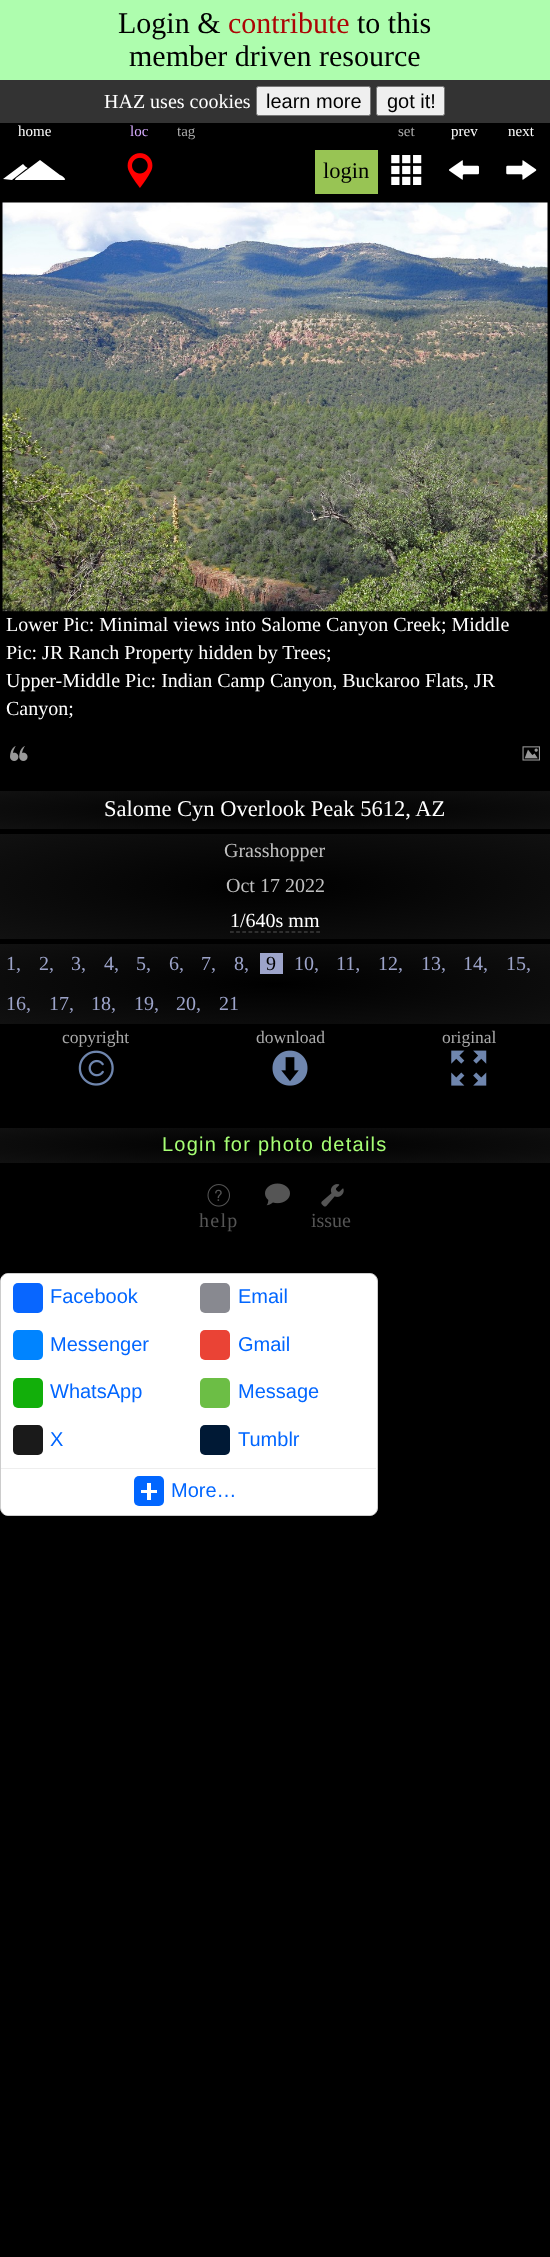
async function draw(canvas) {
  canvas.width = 550;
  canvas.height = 2257;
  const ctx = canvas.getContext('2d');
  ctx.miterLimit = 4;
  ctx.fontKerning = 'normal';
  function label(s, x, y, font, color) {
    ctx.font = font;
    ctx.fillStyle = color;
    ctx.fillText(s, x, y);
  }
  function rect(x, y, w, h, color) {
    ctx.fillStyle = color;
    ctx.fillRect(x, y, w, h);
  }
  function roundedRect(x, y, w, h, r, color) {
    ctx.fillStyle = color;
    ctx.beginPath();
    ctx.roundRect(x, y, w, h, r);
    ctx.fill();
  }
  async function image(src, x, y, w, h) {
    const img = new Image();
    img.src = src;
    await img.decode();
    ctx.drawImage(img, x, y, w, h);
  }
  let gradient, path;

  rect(0, 0, 550, 2257, '#000');
  rect(0, 0, 550, 80, '#aefdae');
  label('Login &', 118, 33, '30px Liberation Serif', '#000');
  label('contribute', 228, 33, '30px Liberation Serif', '#ac0505');
  label('to this', 357, 33, '30px Liberation Serif', '#000');
  label('member driven resource', 129, 66, '30px Liberation Serif', '#000');
  rect(0, 80, 550, 43, '#333');
  label('HAZ uses cookies', 104, 108, '20px Liberation Serif', '#fff');
  ctx.fillStyle = '#efefef';
  ctx.beginPath();
  ctx.roundRect(256.5, 86.5, 114, 29, 2);
  ctx.fill();
  ctx.strokeStyle = '#767676';
  ctx.stroke();
  label('learn more', 266, 108, '20px Liberation Sans', '#000');
  ctx.fillStyle = '#efefef';
  ctx.beginPath();
  ctx.roundRect(376.5, 86.5, 68, 29, 2);
  ctx.fill();
  ctx.stroke();
  label('got it!', 387, 108, '20px Liberation Sans', '#000');
  label('home', 18, 136, '15px Liberation Serif', '#fff');
  label('loc', 130, 136, '15px Liberation Serif', '#d8adff');
  label('tag', 177, 136, '15px Liberation Serif', '#aaa');
  label('set', 398, 136, '15px Liberation Serif', '#aaa');
  label('prev', 451, 136, '15px Liberation Serif', '#fff');
  label('next', 508, 136, '15px Liberation Serif', '#fff');
  path = new Path2D('M3 179L23 164L26 167C28 168 28 168 26 169L12 180ZM15 180C15 179 16 178 16 178L40 160L60 175C61 175 68 180 64 180Z');
  ctx.fill(path);
  await image('assets/img1.png', 127, 153, 26, 35);
  rect(315, 150, 63, 44, '#98c454');
  label('login', 323, 178, '22.5px Liberation Serif', '#000');
  await image('assets/img2.png', 391, 155, 31, 30);
  await image('assets/img3.png', 449, 160, 30, 20);
  await image('assets/img4.png', 506, 160, 31, 20);
  await image('assets/img5.png', 2, 202, 546, 410);
  label('Lower Pic: Minimal views into Salome Canyon Creek; Middle', 6, 631, '20px Liberation Serif', '#fff');
  label('Pic: JR Ranch Property hidden by Trees;', 6, 659, '20px Liberation Serif', '#fff');
  label('Upper-Middle Pic: Indian Camp Canyon, Buckaroo Flats, JR', 6, 687, '20px Liberation Serif', '#fff');
  label('Canyon;', 6, 715, '20px Liberation Serif', '#fff');
  await image('assets/img6.png', 10, 746, 18, 15);
  await image('assets/img7.png', 522, 746, 18, 15);
  gradient = ctx.createRadialGradient(275, 11670, 0, 275, 11670, 389);
  gradient.addColorStop(0, '#000');
  gradient.addColorStop(1, '#111');
  ctx.fillStyle = gradient;
  ctx.beginPath();
  ctx.rect(0, 791, 550, 38);
  ctx.save();
  ctx.clip();
  ctx.scale(1, 27 / 389);
  ctx.fillRect(0, 0, 550, 32518);
  ctx.restore();
  label('Salome Cyn Overlook Peak 5612, AZ', 104, 816, '22.5px Liberation Serif', '#fff');
  gradient = ctx.createRadialGradient(275, 4657.49, 0, 275, 4657.49, 389);
  gradient.addColorStop(0, '#000');
  gradient.addColorStop(1, '#111');
  ctx.fillStyle = gradient;
  ctx.beginPath();
  ctx.rect(0, 834, 550, 105);
  ctx.save();
  ctx.clip();
  ctx.scale(1, 74 / 389);
  ctx.fillRect(0, 0, 550, 11865);
  ctx.restore();
  label('Grasshopper', 224, 857, '20px Liberation Serif', '#c0c0c0');
  label('Oct 17 2022', 226, 892, '20px Liberation Serif', '#c0c0c0');
  label('1/640s mm', 230, 927, '20px Liberation Serif', '#fff');
  path = new Path2D('M230 932H320');
  ctx.strokeStyle = '#555';
  ctx.lineWidth = 1.2;
  ctx.setLineDash([3.75, 2.41]);
  ctx.stroke(path);
  gradient = ctx.createRadialGradient(275, 6715.37, 0, 275, 6715.37, 389);
  gradient.addColorStop(0, '#000');
  gradient.addColorStop(1, '#111');
  ctx.fillStyle = gradient;
  ctx.beginPath();
  ctx.rect(0, 944, 550, 80);
  ctx.save();
  ctx.clip();
  ctx.scale(1, 57 / 389);
  ctx.fillRect(0, 0, 550, 15404);
  ctx.restore();
  label('1,', 6, 970, '20px Liberation Serif', '#9da4ca');
  label('2,', 39, 970, '20px Liberation Serif', '#9da4ca');
  label('3,', 71, 970, '20px Liberation Serif', '#9da4ca');
  label('4,', 104, 970, '20px Liberation Serif', '#9da4ca');
  label('5,', 136, 970, '20px Liberation Serif', '#9da4ca');
  label('6,', 169, 970, '20px Liberation Serif', '#9da4ca');
  label('7,', 201, 970, '20px Liberation Serif', '#9da4ca');
  label('8,', 234, 970, '20px Liberation Serif', '#9da4ca');
  rect(260, 953, 23, 21, '#9da4ca');
  label('9', 266, 970, '20px Liberation Serif', '#000');
  label('10,', 294, 970, '20px Liberation Serif', '#9da4ca');
  label('11,', 336, 970, '20px Liberation Serif', '#9da4ca');
  label('12,', 378, 970, '20px Liberation Serif', '#9da4ca');
  label('13,', 421, 970, '20px Liberation Serif', '#9da4ca');
  label('14,', 463, 970, '20px Liberation Serif', '#9da4ca');
  label('15,', 506, 970, '20px Liberation Serif', '#9da4ca');
  label('16,', 6, 1010, '20px Liberation Serif', '#9da4ca');
  label('17,', 49, 1010, '20px Liberation Serif', '#9da4ca');
  label('18,', 91, 1010, '20px Liberation Serif', '#9da4ca');
  label('19,', 134, 1010, '20px Liberation Serif', '#9da4ca');
  label('20,', 176, 1010, '20px Liberation Serif', '#9da4ca');
  label('21', 219, 1010, '20px Liberation Serif', '#9da4ca');
  label('copyright', 62, 1043, '17.5px Liberation Serif', '#aaa');
  label('download', 256, 1043, '17.5px Liberation Serif', '#aaa');
  label('original', 442, 1043, '17.5px Liberation Serif', '#aaa');
  await image('assets/img8.png', 78, 1050, 36, 36);
  await image('assets/img9.png', 272, 1050, 36, 36);
  await image('assets/img10.png', 451, 1050, 36, 36);
  gradient = ctx.createRadialGradient(275, 17816.2, 0, 275, 17816.2, 389);
  gradient.addColorStop(0, '#000');
  gradient.addColorStop(1, '#111');
  ctx.fillStyle = gradient;
  ctx.beginPath();
  ctx.rect(0, 1128, 550, 35);
  ctx.save();
  ctx.clip();
  ctx.scale(1, 25 / 389);
  ctx.fillRect(0, 0, 550, 35119);
  ctx.restore();
  ctx.letterSpacing = '1.25px';
  label('Login for photo details', 162, 1151, '20px Liberation Sans', '#a7ff75');
  await image('assets/img11.png', 207, 1184, 23, 23);
  await image('assets/img12.png', 265, 1183, 25, 23);
  await image('assets/img13.png', 321, 1184, 23, 23);
  label('help', 199, 1227, '20px Liberation Serif', '#555');
  ctx.letterSpacing = '0px';
  label('issue', 311, 1227, '20px Liberation Serif', '#555');
  ctx.fillStyle = '#fff';
  ctx.beginPath();
  ctx.roundRect(0.5, 1273.5, 377, 242, 7.5);
  ctx.fill();
  ctx.strokeStyle = '#ccc';
  ctx.lineWidth = 1;
  ctx.setLineDash([]);
  ctx.stroke();
  path = new Path2D('M7 1274L4 1275H188V1320H2V1277C1 1278 1 1279 1 1280V1321H189V1274Z');
  ctx.fill(path);
  roundedRect(13, 1283, 30, 30, 5, '#0866ff');
  label('Facebook', 50, 1303, '20px Liberation Sans', '#0166ff');
  ctx.fillStyle = '#fff';
  path = new Path2D('M189 1274V1321H376V1280C376 1279 376 1278 375 1277V1320H190V1275H373L370 1274Z');
  ctx.fill(path);
  roundedRect(200, 1283, 30, 30, 5, '#888990');
  label('Email', 238, 1303, '20px Liberation Sans', '#0166ff');
  roundedRect(13, 1330, 30, 30, 5, '#0084ff');
  label('Messenger', 50, 1351, '20px Liberation Sans', '#0166ff');
  roundedRect(200, 1330, 30, 30, 5, '#ea4335');
  label('Gmail', 238, 1351, '20px Liberation Sans', '#0166ff');
  roundedRect(13, 1378, 30, 30, 5, '#12af0a');
  label('WhatsApp', 50, 1398, '20px Liberation Sans', '#0166ff');
  roundedRect(200, 1378, 30, 30, 5, '#6cbe45');
  label('Message', 238, 1398, '20px Liberation Sans', '#0166ff');
  roundedRect(13, 1425, 30, 30, 5, '#1a1a1a');
  label('X', 50, 1446, '20px Liberation Sans', '#0166ff');
  roundedRect(200, 1425, 30, 30, 5, '#001935');
  label('Tumblr', 238, 1446, '20px Liberation Sans', '#0166ff');
  rect(1, 1468, 375, 1, '#eee');
  ctx.save();
  ctx.beginPath();
  ctx.roundRect(1, 1274, 375, 241, 6);
  ctx.clip();
  rect(1, 1514, 375, 1, '#fff');
  ctx.restore();
  roundedRect(134, 1476, 30, 30, 5, '#0166ff');
  rect(147, 1483, 4, 17, '#fff');
  rect(141, 1490, 16, 3, '#fff');
  label('More…', 171, 1497, '20px Liberation Sans', '#0166ff');
}

draw(document.querySelector('canvas'));
